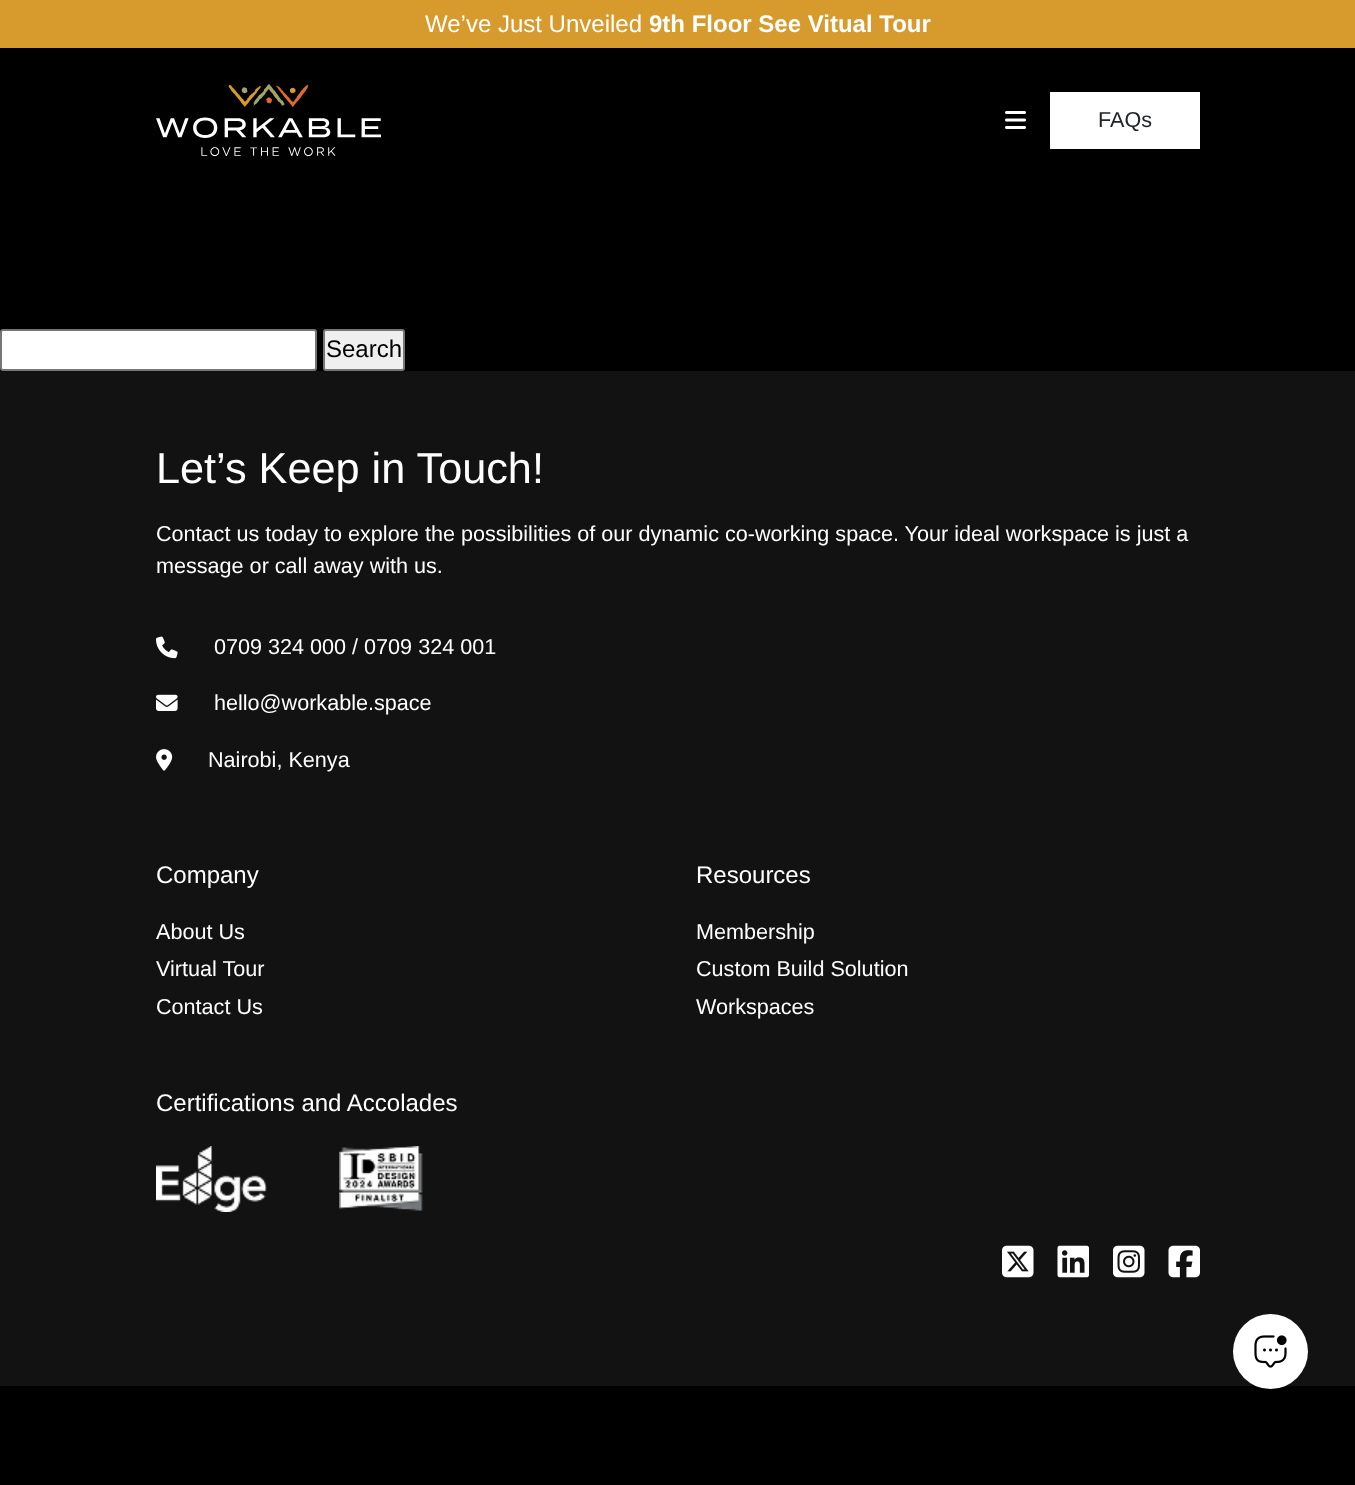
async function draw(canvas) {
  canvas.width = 1355;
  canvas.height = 1485;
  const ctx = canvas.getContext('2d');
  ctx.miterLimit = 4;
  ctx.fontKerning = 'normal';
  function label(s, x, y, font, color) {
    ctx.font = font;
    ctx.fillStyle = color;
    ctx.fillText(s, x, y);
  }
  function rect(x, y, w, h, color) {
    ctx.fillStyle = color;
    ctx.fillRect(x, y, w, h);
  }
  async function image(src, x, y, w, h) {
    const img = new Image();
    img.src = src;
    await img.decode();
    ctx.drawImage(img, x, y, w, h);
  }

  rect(0, 0, 1355, 1485, '#000');
  rect(0, 0, 1355, 48, '#d79a2c');
  label('We’ve Just Unveiled', 425, 32, '24px Liberation Sans', '#fff');
  label('9th Floor See Vitual Tour', 649, 32, 'bold 24px Liberation Sans', '#fff');
  await image('assets/img1.png', 156, 84, 225, 72);
  await image('assets/img2.png', 1005, 111, 21, 18);
  rect(1050, 92, 150, 57, '#fff');
  label('FAQs', 1098, 127, '21.6px Liberation Sans', '#212529');
  ctx.fillStyle = '#fff';
  ctx.beginPath();
  ctx.roundRect(1, 330, 315, 40, 2);
  ctx.fill();
  ctx.strokeStyle = '#767676';
  ctx.lineWidth = 2;
  ctx.stroke();
  ctx.fillStyle = '#efefef';
  ctx.beginPath();
  ctx.roundRect(324, 330, 80, 40, 2);
  ctx.fill();
  ctx.stroke();
  label('Search', 326, 357, '24px Liberation Sans', '#000');
  rect(0, 371, 1355, 1015, '#121212');
  label('Let’s Keep in Touch!', 156, 483, '43.25px Liberation Sans', '#fff');
  label('Contact us today to explore the possibilities of our dynamic co-working space. Your ideal workspace is just a', 156, 541, '21.6px Liberation Sans', '#fff');
  label('message or call away with us.', 156, 573, '21.6px Liberation Sans', '#fff');
  await image('assets/img3.png', 156, 636, 22, 23);
  label('0709 324 000 / 0709 324 001', 214, 654, '21.6px Liberation Sans', '#fff');
  await image('assets/img4.png', 156, 694, 22, 17);
  label('hello@workable.space', 214, 710, '21.6px Liberation Sans', '#fff');
  await image('assets/img5.png', 156, 749, 17, 22);
  label('Nairobi, Kenya', 208, 767, '21.6px Liberation Sans', '#fff');
  label('Company', 156, 883, '24px Liberation Sans', '#fff');
  label('About Us', 156, 939, '21.6px Liberation Sans', '#fff');
  label('Virtual Tour', 156, 976, '21.6px Liberation Sans', '#fff');
  label('Contact Us', 156, 1014, '21.6px Liberation Sans', '#fff');
  label('Resources', 696, 883, '24px Liberation Sans', '#fff');
  label('Membership', 696, 939, '21.6px Liberation Sans', '#fff');
  label('Custom Build Solution', 696, 976, '21.6px Liberation Sans', '#fff');
  label('Workspaces', 696, 1014, '21.6px Liberation Sans', '#fff');
  label('Certifications and Accolades', 156, 1111, '24px Liberation Sans', '#fff');
  await image('assets/img6.png', 156, 1146, 111, 66);
  await image('assets/img7.png', 339, 1146, 84, 65);
  await image('assets/img8.png', 1002, 1245, 32, 33);
  await image('assets/img9.png', 1057, 1245, 32, 33);
  await image('assets/img10.png', 1113, 1245, 32, 33);
  await image('assets/img11.png', 1168, 1245, 32, 33);
  ctx.beginPath();
  ctx.arc(1270.5, 1351.5, 37.5, 0, 2 * Math.PI);
  ctx.fill();
  await image('assets/img12.png', 1254, 1335, 33, 33);
}

draw(document.querySelector('canvas'));
